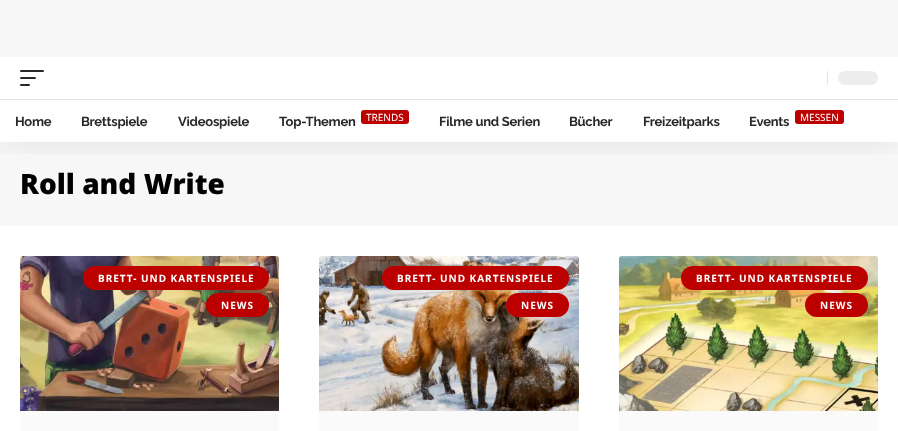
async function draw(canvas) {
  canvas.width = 898;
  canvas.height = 431;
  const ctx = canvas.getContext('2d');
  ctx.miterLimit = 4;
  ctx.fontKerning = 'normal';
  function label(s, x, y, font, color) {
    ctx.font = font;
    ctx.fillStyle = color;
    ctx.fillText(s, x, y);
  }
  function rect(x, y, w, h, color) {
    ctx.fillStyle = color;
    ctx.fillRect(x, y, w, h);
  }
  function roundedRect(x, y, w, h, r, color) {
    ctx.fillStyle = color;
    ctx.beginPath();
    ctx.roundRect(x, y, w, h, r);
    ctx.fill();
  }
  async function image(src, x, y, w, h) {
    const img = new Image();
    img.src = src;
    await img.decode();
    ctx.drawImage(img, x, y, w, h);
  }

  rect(0, 0, 898, 431, '#fff');
  rect(0, 0, 898, 57, '#f7f7f7');
  rect(0, 142, 898, 84, '#f7f7f7');
  ctx.save();
  ctx.beginPath();
  ctx.rect(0, 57, 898, 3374);
  ctx.clip();
  ctx.beginPath();
  ctx.rect(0, 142, 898, 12);
  ctx.clip();
  ctx.fillStyle = '#00000012';
  ctx.filter = 'blur(15px)';
  ctx.beginPath();
  ctx.rect(0, 61, 898, 85);
  ctx.fill();
  ctx.filter = 'none';
  ctx.restore();
  roundedRect(20, 70, 24, 2, 1, '#282828');
  roundedRect(20, 77, 16, 2, 1, '#282828');
  roundedRect(20, 84, 10, 2, 1, '#282828');
  rect(827, 71, 1, 14, '#e4e4e4');
  roundedRect(838, 71, 40, 14, 7, '#ededed');
  rect(0, 99, 898, 1, '#e4e4e4');
  ctx.letterSpacing = '-0.25px';
  label('Home', 15, 126, 'bold 13px Raleway', '#282828');
  label('Brettspiele', 81, 126, 'bold 13px Raleway', '#282828');
  label('Videospiele', 178, 126, 'bold 13px Raleway', '#282828');
  label('Top-Themen', 279, 126, 'bold 13px Raleway', '#282828');
  roundedRect(361, 110, 48, 14, 3, '#bc0000');
  ctx.letterSpacing = '0px';
  label('TRENDS', 366, 121, '10px Noto Sans', '#fff');
  ctx.letterSpacing = '-0.25px';
  label('Filme und Serien', 439, 126, 'bold 13px Raleway', '#282828');
  label('Bücher', 569, 126, 'bold 13px Raleway', '#282828');
  label('Freizeitparks', 643, 126, 'bold 13px Raleway', '#282828');
  label('Events', 749, 126, 'bold 13px Raleway', '#282828');
  roundedRect(795, 110, 49, 14, 3, '#bc0000');
  ctx.letterSpacing = '0px';
  label('MESSEN', 800, 121, '10px Noto Sans', '#fff');
  label('Roll and Write', 20, 194, '900 28px Noto Sans', '#000');
  roundedRect(20, 256, 259, 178, 3, '#fafafa');
  await image('assets/img1.png', 20, 256, 259, 155);
  roundedRect(83, 266, 186, 24, 12, '#bc0000');
  ctx.letterSpacing = '1px';
  label('BRETT- UND KARTENSPIELE', 98, 282, 'bold 10px Noto Sans', '#fff');
  roundedRect(206, 293, 63, 24, 12, '#bc0000');
  label('NEWS', 221, 309, 'bold 10px Noto Sans', '#fff');
  roundedRect(319, 256, 260, 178, 3, '#fafafa');
  await image('assets/img2.png', 319, 256, 260, 155);
  roundedRect(382, 266, 187, 24, 12, '#bc0000');
  label('BRETT- UND KARTENSPIELE', 397, 282, 'bold 10px Noto Sans', '#fff');
  roundedRect(506, 293, 63, 24, 12, '#bc0000');
  label('NEWS', 521, 309, 'bold 10px Noto Sans', '#fff');
  roundedRect(619, 256, 259, 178, 3, '#fafafa');
  await image('assets/img3.png', 619, 256, 259, 155);
  roundedRect(681, 266, 187, 24, 12, '#bc0000');
  label('BRETT- UND KARTENSPIELE', 696, 282, 'bold 10px Noto Sans', '#fff');
  roundedRect(805, 293, 63, 24, 12, '#bc0000');
  label('NEWS', 820, 309, 'bold 10px Noto Sans', '#fff');
}

draw(document.querySelector('canvas'));
